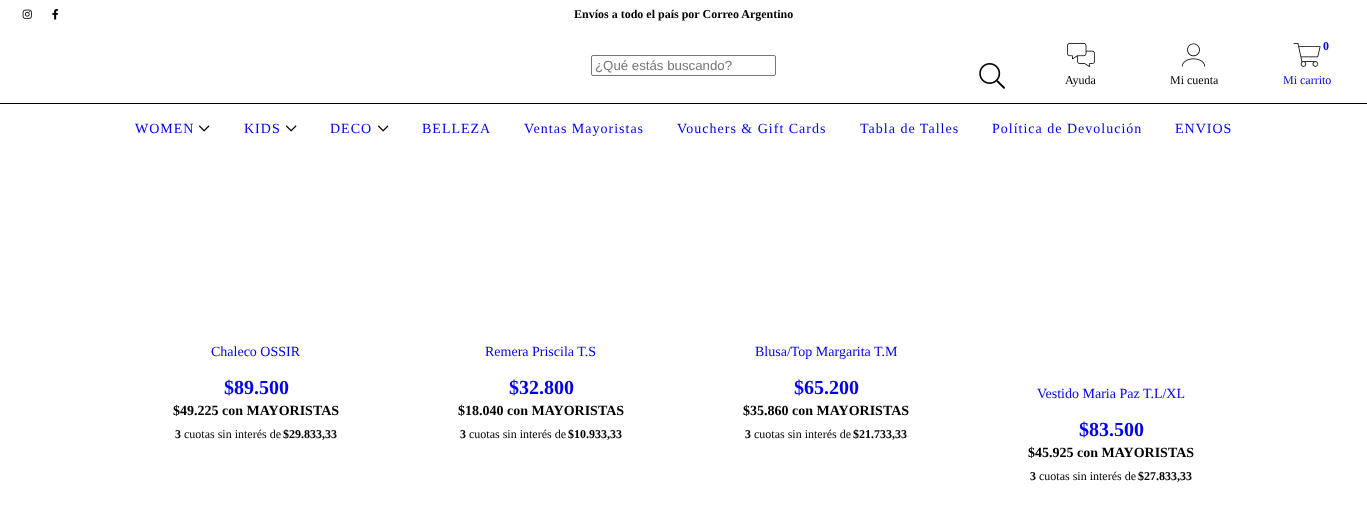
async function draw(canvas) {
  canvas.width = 1367;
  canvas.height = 519;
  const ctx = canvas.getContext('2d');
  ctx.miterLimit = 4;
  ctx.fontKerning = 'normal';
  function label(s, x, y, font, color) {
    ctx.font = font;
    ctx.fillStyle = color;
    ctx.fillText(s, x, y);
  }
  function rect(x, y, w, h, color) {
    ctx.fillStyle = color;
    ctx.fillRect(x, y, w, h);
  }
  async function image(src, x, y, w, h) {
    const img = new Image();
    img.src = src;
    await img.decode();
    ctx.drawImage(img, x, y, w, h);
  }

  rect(0, 0, 1367, 519, '#fff');
  await image('assets/img1.png', 22, 9, 10, 10);
  await image('assets/img2.png', 52, 9, 7, 11);
  label('Envíos a todo el país por Correo Argentino', 574, 18, 'bold 12px Liberation Serif', '#000');
  ctx.beginPath();
  ctx.roundRect(591.5, 55.5, 184, 20, 1.5);
  ctx.strokeStyle = '#767676';
  ctx.stroke();
  label('¿Qué estás buscando?', 595, 70, '13.25px Liberation Sans', '#757575');
  await image('assets/img3.png', 979, 63, 26, 26);
  await image('assets/img4.png', 1067, 43, 28, 24);
  label('Ayuda', 1065, 84, '12px Liberation Serif', '#000');
  await image('assets/img5.png', 1181, 43, 25, 24);
  label('Mi cuenta', 1170, 84, '12px Liberation Serif', '#000');
  await image('assets/img6.png', 1293, 43, 28, 24);
  label('0', 1323, 50, 'bold 12px Liberation Serif', '#00e');
  label('Mi carrito', 1283, 84, '12px Liberation Serif', '#00e');
  rect(0, 103, 1367, 1, '#000');
  ctx.letterSpacing = '1px';
  label('WOMEN', 135, 133, '14px Liberation Serif', '#00e');
  await image('assets/img7.png', 198, 125, 12, 7);
  label('KIDS', 244, 133, '14px Liberation Serif', '#00e');
  await image('assets/img7.png', 285, 125, 12, 7);
  label('DECO', 330, 133, '14px Liberation Serif', '#00e');
  await image('assets/img7.png', 377, 125, 12, 7);
  label('BELLEZA', 422, 133, '14px Liberation Serif', '#00e');
  label('Ventas Mayoristas', 524, 133, '14px Liberation Serif', '#00e');
  label('Vouchers & Gift Cards', 677, 133, '14px Liberation Serif', '#00e');
  label('Tabla de Talles', 860, 133, '14px Liberation Serif', '#00e');
  label('Política de Devolución', 992, 133, '14px Liberation Serif', '#00e');
  label('ENVIOS', 1175, 133, '14px Liberation Serif', '#00e');
  ctx.letterSpacing = '0px';
  label('Chaleco OSSIR', 211, 356, '14px Liberation Serif', '#00e');
  label('$89.500', 224, 394, 'bold 20px Liberation Serif', '#00e');
  label('$49.225 con MAYORISTAS', 173, 415, 'bold 14px Liberation Serif', '#000');
  label('3', 175, 438, 'bold 12px Liberation Serif', '#000');
  label('cuotas sin interés de', 184, 438, '12px Liberation Serif', '#000');
  label('$29.833,33', 283, 438, 'bold 12px Liberation Serif', '#000');
  label('Remera Priscila T.S', 485, 356, '14px Liberation Serif', '#00e');
  label('$32.800', 509, 394, 'bold 20px Liberation Serif', '#00e');
  label('$18.040 con MAYORISTAS', 458, 415, 'bold 14px Liberation Serif', '#000');
  label('3', 460, 438, 'bold 12px Liberation Serif', '#000');
  label('cuotas sin interés de', 469, 438, '12px Liberation Serif', '#000');
  label('$10.933,33', 568, 438, 'bold 12px Liberation Serif', '#000');
  label('Blusa/Top Margarita T.M', 755, 356, '14px Liberation Serif', '#00e');
  label('$65.200', 794, 394, 'bold 20px Liberation Serif', '#00e');
  label('$35.860 con MAYORISTAS', 743, 415, 'bold 14px Liberation Serif', '#000');
  label('3', 745, 438, 'bold 12px Liberation Serif', '#000');
  label('cuotas sin interés de', 754, 438, '12px Liberation Serif', '#000');
  label('$21.733,33', 853, 438, 'bold 12px Liberation Serif', '#000');
  label('Vestido Maria Paz T.L/XL', 1037, 398, '14px Liberation Serif', '#00e');
  label('$83.500', 1079, 436, 'bold 20px Liberation Serif', '#00e');
  label('$45.925 con MAYORISTAS', 1028, 457, 'bold 14px Liberation Serif', '#000');
  label('3', 1030, 480, 'bold 12px Liberation Serif', '#000');
  label('cuotas sin interés de', 1039, 480, '12px Liberation Serif', '#000');
  label('$27.833,33', 1138, 480, 'bold 12px Liberation Serif', '#000');
}

draw(document.querySelector('canvas'));
